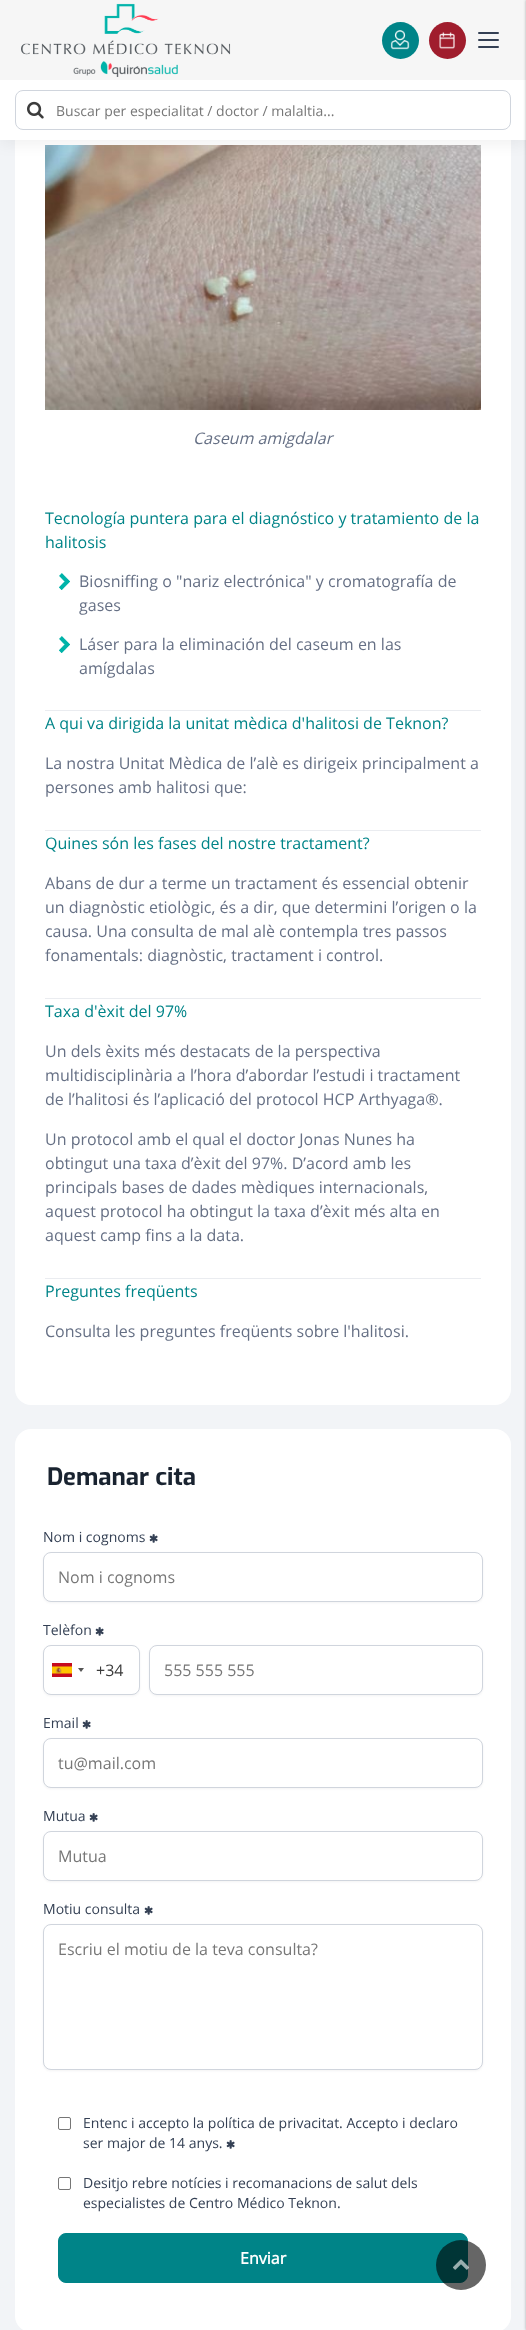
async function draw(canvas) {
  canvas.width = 526;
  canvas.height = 2330;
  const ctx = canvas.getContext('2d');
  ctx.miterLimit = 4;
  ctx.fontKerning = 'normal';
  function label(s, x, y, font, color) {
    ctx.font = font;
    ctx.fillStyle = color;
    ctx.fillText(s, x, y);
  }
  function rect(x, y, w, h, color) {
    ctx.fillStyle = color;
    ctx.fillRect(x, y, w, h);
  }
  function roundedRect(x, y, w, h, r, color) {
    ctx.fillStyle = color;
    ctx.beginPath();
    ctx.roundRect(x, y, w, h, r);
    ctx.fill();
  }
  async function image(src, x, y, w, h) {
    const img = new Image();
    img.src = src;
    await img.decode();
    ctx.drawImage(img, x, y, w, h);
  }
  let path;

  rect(0, 0, 526, 2330, '#f2f4f7');
  roundedRect(15, -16, 496, 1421, 16, '#fff');
  await image('assets/img5.png', 45, 145, 436, 265);
  ctx.fillStyle = '#0000000d';
  ctx.filter = 'blur(7px)';
  ctx.beginPath();
  ctx.rect(0, 5, 526, 140);
  ctx.fill();
  ctx.filter = 'none';
  rect(0, 80, 526, 60, '#fff');
  rect(0, 0, 526, 80, '#f6f6f6');
  await image('assets/img1.png', 21, 3, 210, 74);
  ctx.fillStyle = '#008488';
  ctx.beginPath();
  ctx.arc(400.5, 40.5, 18.5, 0, 2 * Math.PI);
  ctx.fill();
  await image('assets/img2.png', 390, 30, 20, 20);
  ctx.fillStyle = '#a01d2d';
  ctx.beginPath();
  ctx.arc(447.5, 40.5, 18.5, 0, 2 * Math.PI);
  ctx.fill();
  await image('assets/img3.png', 439, 32, 16, 17);
  roundedRect(478, 32, 21, 2, 1, '#344054');
  roundedRect(478, 39, 21, 2, 1, '#344054');
  roundedRect(478, 46, 21, 2, 1, '#344054');
  ctx.beginPath();
  ctx.roundRect(15.5, 90.5, 495, 39, 7.5);
  ctx.strokeStyle = '#d0d5dd';
  ctx.stroke();
  await image('assets/img4.png', 27, 101, 17, 18);
  label('Buscar per especialitat / doctor / malaltia...', 56, 116, '14px Open Sans', '#777');
  ctx.fillStyle = '#0000004d';
  ctx.filter = 'blur(1.5px)';
  ctx.beginPath();
  ctx.rect(526, 0, 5, 2330);
  ctx.fill();
  ctx.filter = 'none';
  label('Caseum amigdalar', 193, 444, 'italic 16px Open Sans', '#667085');
  label('Tecnología puntera para el diagnóstico y tratamiento de la', 45, 524, '16px Open Sans', '#008488');
  label('halitosis', 45, 548, '16px Open Sans', '#008488');
  await image('assets/img6.png', 59, 573, 11, 17);
  label('Biosniffing o "nariz electrónica" y cromatografía de', 79, 587, '16px Open Sans', '#667085');
  label('gases', 79, 611, '16px Open Sans', '#667085');
  await image('assets/img6.png', 59, 636, 11, 17);
  label('Láser para la eliminación del caseum en las', 79, 650, '16px Open Sans', '#667085');
  label('amígdalas', 79, 674, '16px Open Sans', '#667085');
  rect(45, 710, 436, 1, '#eaecf0');
  label('A qui va dirigida la unitat mèdica d\'halitosi de Teknon?', 45, 729, '16px Open Sans', '#008488');
  label('La nostra Unitat Mèdica de l’alè es dirigeix principalment a', 45, 769, '16px Open Sans', '#667085');
  label('persones amb halitosi que:', 45, 793, '16px Open Sans', '#667085');
  rect(45, 830, 436, 1, '#eaecf0');
  label('Quines són les fases del nostre tractament?', 45, 849, '16px Open Sans', '#008488');
  label('Abans de dur a terme un tractament és essencial obtenir', 45, 889, '16px Open Sans', '#667085');
  label('un diagnòstic etiològic, és a dir, que determini l’origen o la', 45, 913, '16px Open Sans', '#667085');
  label('causa. Una consulta de mal alè contempla tres passos', 45, 937, '16px Open Sans', '#667085');
  label('fonamentals: diagnòstic, tractament i control.', 45, 961, '16px Open Sans', '#667085');
  rect(45, 998, 436, 1, '#eaecf0');
  label('Taxa d\'èxit del 97%', 45, 1017, '16px Open Sans', '#008488');
  label('Un dels èxits més destacats de la perspectiva', 45, 1057, '16px Open Sans', '#667085');
  label('multidisciplinària a l’hora d’abordar l’estudi i tractament', 45, 1081, '16px Open Sans', '#667085');
  label('de l’halitosi és l’aplicació del protocol HCP Arthyaga®.', 45, 1105, '16px Open Sans', '#667085');
  label('Un protocol amb el qual el doctor Jonas Nunes ha', 45, 1145, '16px Open Sans', '#667085');
  label('obtingut una taxa d’èxit del 97%. D’acord amb les', 45, 1169, '16px Open Sans', '#667085');
  label('principals bases de dades mèdiques internacionals,', 45, 1193, '16px Open Sans', '#667085');
  label('aquest protocol ha obtingut la taxa d’èxit més alta en', 45, 1217, '16px Open Sans', '#667085');
  label('aquest camp fins a la data.', 45, 1241, '16px Open Sans', '#667085');
  rect(45, 1278, 436, 1, '#eaecf0');
  label('Preguntes freqüents', 45, 1297, '16px Open Sans', '#008488');
  label('Consulta les preguntes freqüents sobre l\'halitosi.', 45, 1337, '16px Open Sans', '#667085');
  roundedRect(15, 1429, 496, 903, 16, '#fff');
  label('Demanar cita', 47, 1485, 'bold 24px Exo', '#192330');
  label('Nom i cognoms', 43, 1542, '14px Open Sans', '#344054');
  await image('assets/img7.png', 149, 1534, 9, 9);
  ctx.fillStyle = '#1018280d';
  ctx.filter = 'blur(1px)';
  ctx.beginPath();
  ctx.roundRect(43, 1553, 440, 50, 8);
  ctx.fill();
  ctx.filter = 'none';
  ctx.fillStyle = '#fff';
  ctx.beginPath();
  ctx.roundRect(43.5, 1552.5, 439, 49, 7.5);
  ctx.fill();
  ctx.stroke();
  label('Nom i cognoms', 58, 1583, '16px Open Sans', '#777');
  label('Telèfon', 43, 1635, '14px Open Sans', '#344054');
  await image('assets/img7.png', 95, 1627, 9, 9);
  ctx.fillStyle = '#1018280d';
  ctx.filter = 'blur(1px)';
  ctx.beginPath();
  ctx.roundRect(43, 1646, 97, 50, 8);
  ctx.fill();
  ctx.filter = 'none';
  ctx.fillStyle = '#fff';
  ctx.beginPath();
  ctx.roundRect(43.5, 1645.5, 96, 49, 7.5);
  ctx.fill();
  ctx.stroke();
  ctx.fillStyle = '#888';
  ctx.filter = 'blur(0.5px)';
  ctx.beginPath();
  ctx.rect(52, 1663, 20, 14);
  ctx.fill();
  ctx.filter = 'none';
  await image('assets/img8.png', 52, 1663, 20, 14);
  ctx.fillStyle = '#555';
  path = new Path2D('M78 1668H84L81 1672Z');
  ctx.fill(path);
  label('+34', 96, 1676, '16px Open Sans', '#3c3c3c');
  ctx.fillStyle = '#1018280d';
  ctx.filter = 'blur(1px)';
  ctx.beginPath();
  ctx.roundRect(149, 1646, 334, 50, 8);
  ctx.fill();
  ctx.filter = 'none';
  ctx.fillStyle = '#fff';
  ctx.beginPath();
  ctx.roundRect(149.5, 1645.5, 333, 49, 7.5);
  ctx.fill();
  ctx.stroke();
  label('555 555 555', 164, 1676, '16px Open Sans', '#777');
  label('Email', 43, 1728, '14px Open Sans', '#344054');
  await image('assets/img7.png', 82, 1720, 9, 9);
  ctx.fillStyle = '#1018280d';
  ctx.filter = 'blur(1px)';
  ctx.beginPath();
  ctx.roundRect(43, 1739, 440, 50, 8);
  ctx.fill();
  ctx.filter = 'none';
  ctx.fillStyle = '#fff';
  ctx.beginPath();
  ctx.roundRect(43.5, 1738.5, 439, 49, 7.5);
  ctx.fill();
  ctx.stroke();
  label('tu@mail.com', 58, 1769, '16px Open Sans', '#777');
  label('Mutua', 43, 1821, '14px Open Sans', '#344054');
  await image('assets/img7.png', 89, 1813, 9, 9);
  ctx.fillStyle = '#1018280d';
  ctx.filter = 'blur(1px)';
  ctx.beginPath();
  ctx.roundRect(43, 1832, 440, 50, 8);
  ctx.fill();
  ctx.filter = 'none';
  ctx.fillStyle = '#fff';
  ctx.beginPath();
  ctx.roundRect(43.5, 1831.5, 439, 49, 7.5);
  ctx.fill();
  ctx.stroke();
  label('Mutua', 58, 1862, '16px Open Sans', '#777');
  label('Motiu consulta', 43, 1914, '14px Open Sans', '#344054');
  await image('assets/img7.png', 144, 1906, 9, 9);
  ctx.fillStyle = '#1018280d';
  ctx.filter = 'blur(1px)';
  ctx.beginPath();
  ctx.roundRect(43, 1925, 440, 146, 8);
  ctx.fill();
  ctx.filter = 'none';
  ctx.fillStyle = '#fff';
  ctx.beginPath();
  ctx.roundRect(43.5, 1924.5, 439, 145, 7.5);
  ctx.fill();
  ctx.stroke();
  label('Escriu el motiu de la teva consulta?', 58, 1955, '16px Open Sans', '#777');
  ctx.beginPath();
  ctx.roundRect(58.5, 2117.5, 12, 12, 1.5);
  ctx.strokeStyle = '#767676';
  ctx.stroke();
  label('Entenc i accepto la política de privacitat. Accepto i declaro', 83, 2128, '14px Open Sans', '#344054');
  label('ser major de 14 anys.', 83, 2148, '14px Open Sans', '#344054');
  await image('assets/img7.png', 226, 2140, 9, 9);
  ctx.beginPath();
  ctx.roundRect(58.5, 2177.5, 12, 12, 1.5);
  ctx.stroke();
  label('Desitjo rebre notícies i recomanacions de salut dels', 83, 2188, '14px Open Sans', '#344054');
  label('especialistes de Centro Médico Teknon.', 83, 2208, '14px Open Sans', '#344054');
  ctx.fillStyle = '#008488';
  ctx.beginPath();
  ctx.roundRect(58.5, 2233.5, 409, 49, 7.5);
  ctx.fill();
  ctx.strokeStyle = '#008488';
  ctx.stroke();
  label('Enviar', 240, 2264, 'bold 16px Open Sans', '#fff');
  ctx.fillStyle = '#00000099';
  ctx.beginPath();
  ctx.arc(461, 2265, 25, 0, 2 * Math.PI);
  ctx.fill();
  await image('assets/img9.png', 453, 2259, 16, 11);
}

draw(document.querySelector('canvas'));
